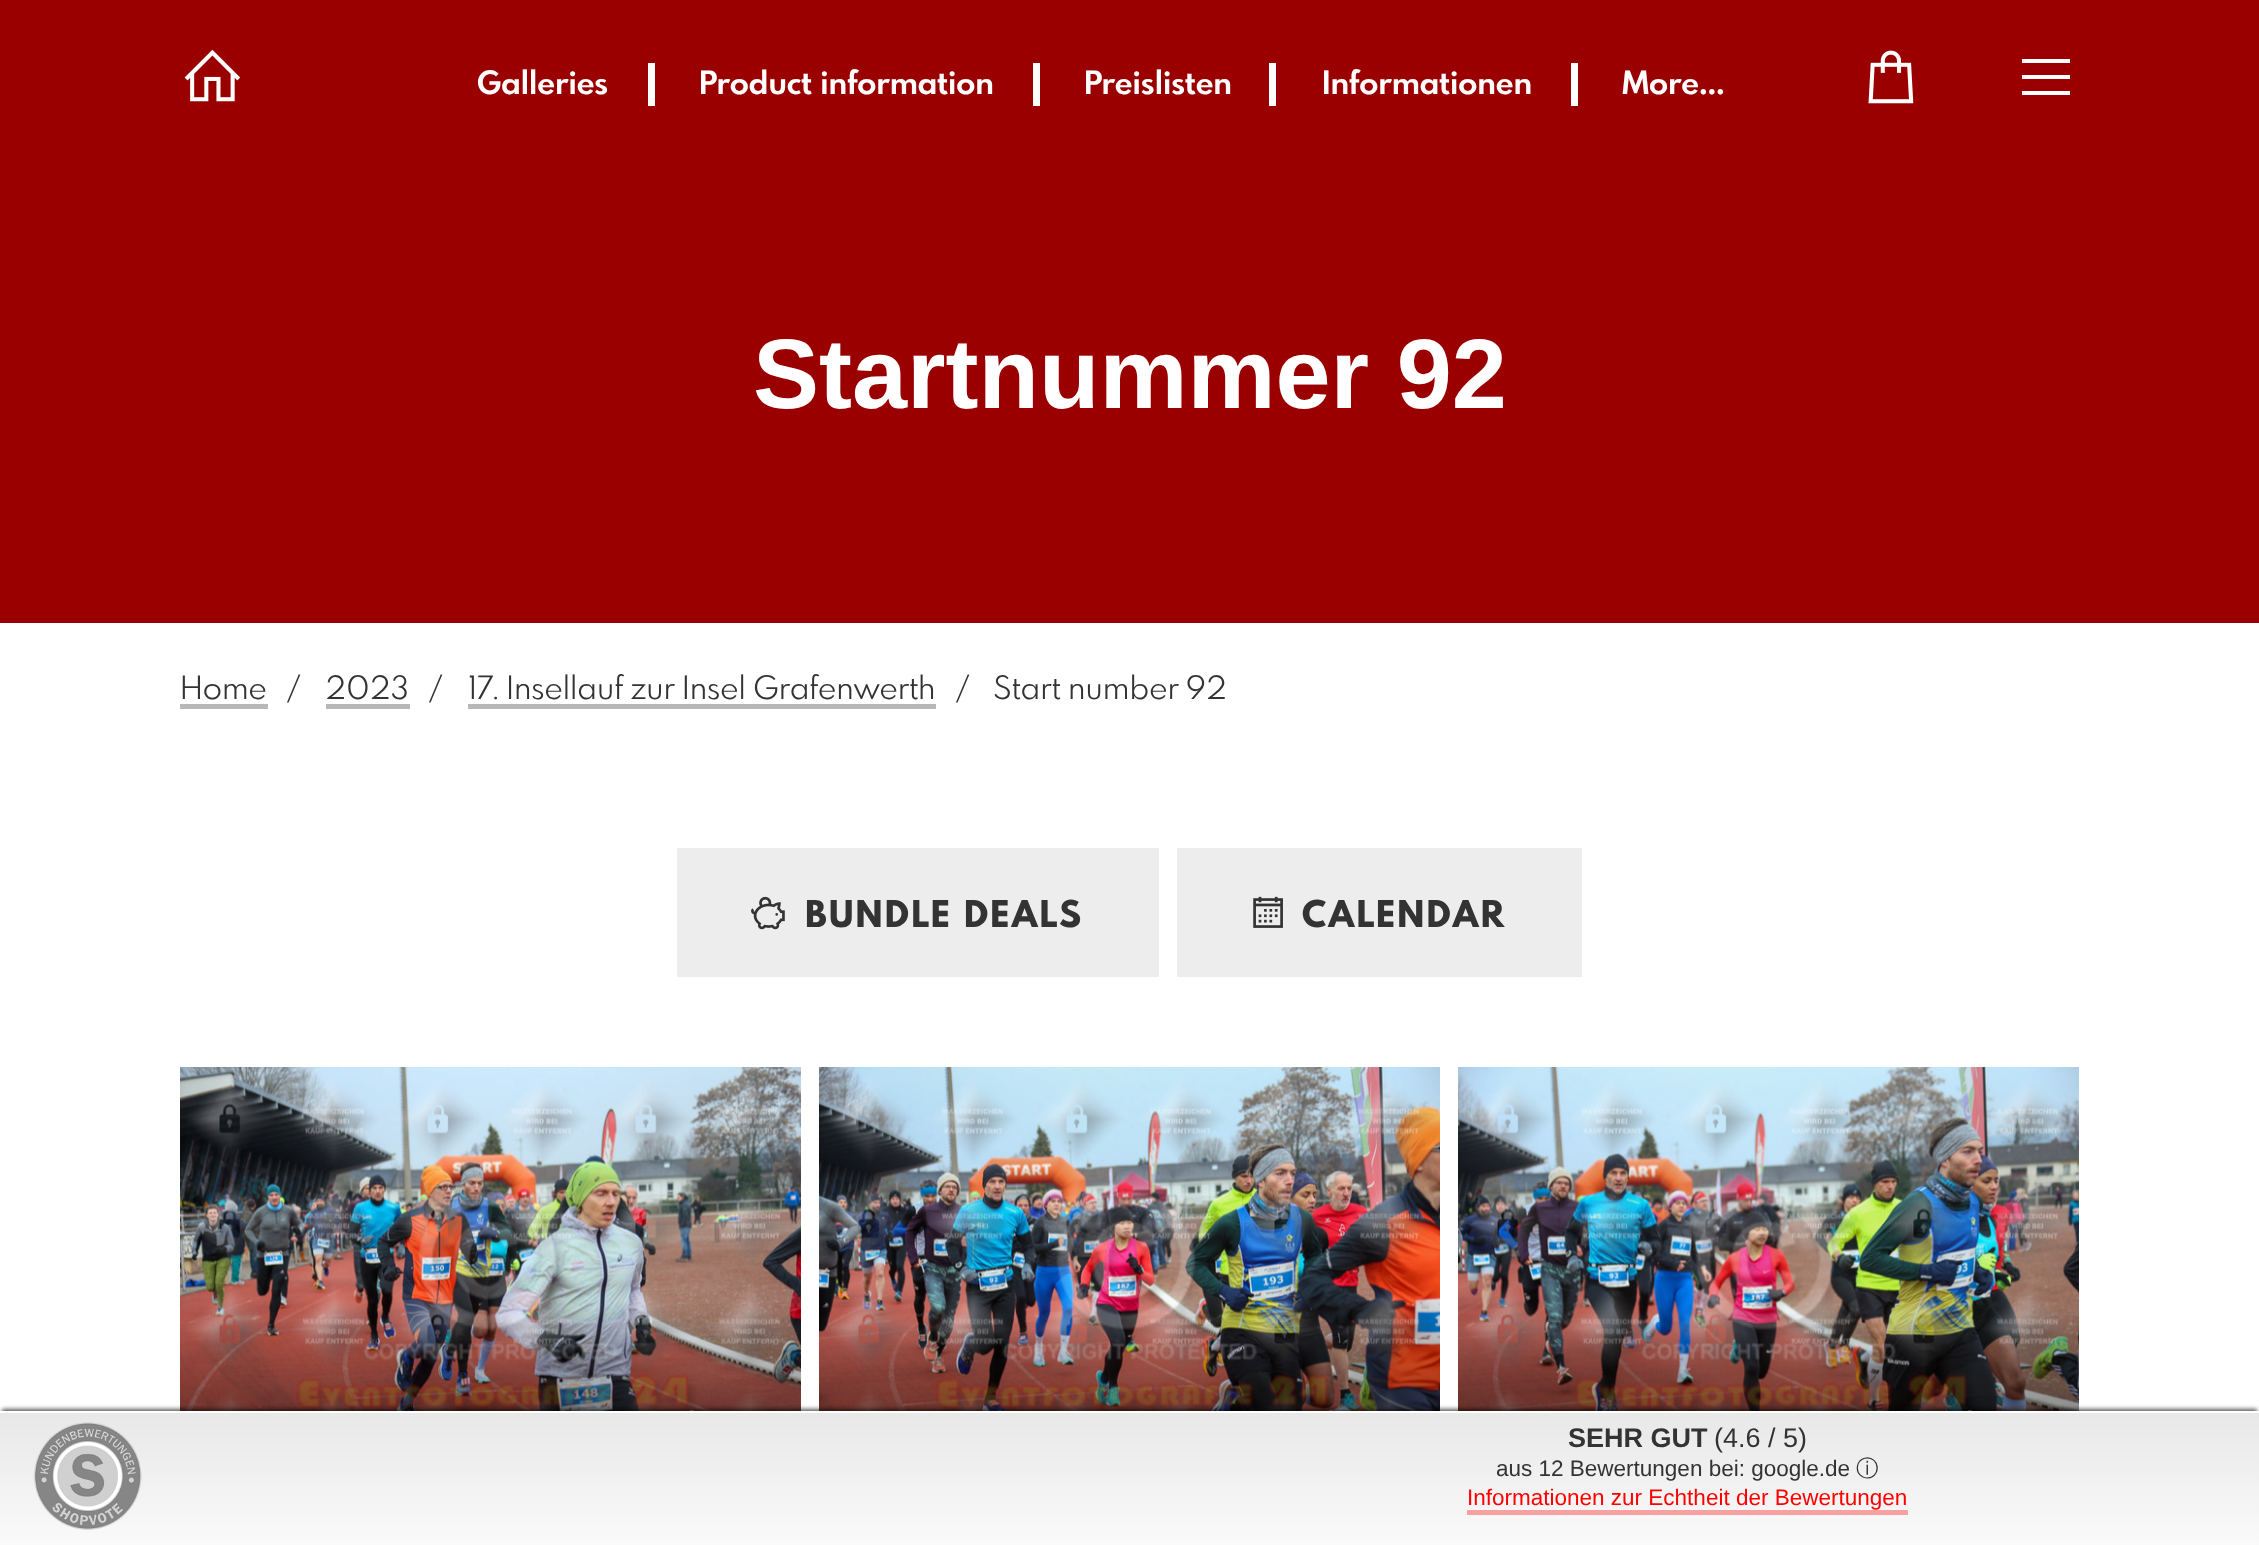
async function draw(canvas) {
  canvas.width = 2259;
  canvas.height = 1545;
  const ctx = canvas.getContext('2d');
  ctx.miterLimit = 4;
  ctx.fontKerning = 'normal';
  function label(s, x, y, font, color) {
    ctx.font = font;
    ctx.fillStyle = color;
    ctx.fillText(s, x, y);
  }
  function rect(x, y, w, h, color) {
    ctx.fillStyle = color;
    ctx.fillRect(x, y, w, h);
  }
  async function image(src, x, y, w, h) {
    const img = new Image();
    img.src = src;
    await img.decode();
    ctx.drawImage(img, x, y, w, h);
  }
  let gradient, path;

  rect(0, 0, 2259, 1545, '#fff');
  rect(0, 0, 2259, 623, '#9a0000');
  await image('assets/img1.png', 184, 49, 57, 53);
  label('Galleries', 477, 94, 'bold 31.5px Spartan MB', '#fff');
  rect(648, 63, 7, 43, '#fff');
  label('Product information', 699, 94, 'bold 31.5px Spartan MB', '#fff');
  rect(1033, 63, 7, 43, '#fff');
  label('Preislisten', 1084, 94, 'bold 31.5px Spartan MB', '#fff');
  rect(1269, 63, 7, 43, '#fff');
  label('Informationen', 1322, 94, 'bold 31.5px Spartan MB', '#fff');
  rect(1571, 63, 7, 43, '#fff');
  label('More…', 1622, 94, 'bold 31.5px Spartan MB', '#fff');
  await image('assets/img2.png', 1868, 50, 46, 54);
  path = new Path2D('M2022 59V63H2070V59ZM2022 75V79H2070V75ZM2022 91V95H2070V91Z');
  ctx.fill(path);
  label('Startnummer 92', 753, 408, 'bold 99px Liberation Sans', '#fff');
  label('Home', 180, 699, '31.5px Spartan MB', '#333');
  rect(180, 704, 88, 5, '#b8b8b8');
  label('/', 287, 699, '31.5px Spartan MB', '#333');
  label('2023', 325, 699, '31.5px Spartan MB', '#333');
  rect(326, 704, 84, 5, '#b8b8b8');
  label('/', 429, 699, '31.5px Spartan MB', '#333');
  label('17. Insellauf zur Insel Grafenwerth', 467, 699, '31.5px Spartan MB', '#333');
  rect(468, 704, 468, 5, '#b8b8b8');
  label('/', 956, 699, '31.5px Spartan MB', '#333');
  label('Start number 92', 993, 699, '31.5px Spartan MB', '#333');
  rect(677, 848, 482, 129, '#ededed');
  await image('assets/img3.png', 751, 896, 34, 34);
  ctx.letterSpacing = '2.25px';
  label('BUNDLE DEALS', 805, 927, '800 36px Spartan MB', '#333');
  rect(1177, 848, 405, 129, '#ededed');
  await image('assets/img4.png', 1253, 896, 30, 32);
  label('CALENDAR', 1302, 927, '800 36px Spartan MB', '#333');
  await image('assets/img5.png', 180, 1067, 621, 344);
  await image('assets/img6.png', 689, 1410, 5, 1);
  await image('assets/img7.png', 819, 1067, 621, 344);
  await image('assets/img8.png', 1328, 1410, 5, 1);
  await image('assets/img9.png', 1458, 1067, 621, 344);
  await image('assets/img10.png', 1967, 1410, 5, 1);
  ctx.fillStyle = '#000000a6';
  ctx.filter = 'blur(2px)';
  ctx.beginPath();
  ctx.rect(2, 1409, 2255, 130);
  ctx.fill();
  ctx.filter = 'none';
  gradient = ctx.createLinearGradient(1130, 1413, 1130, 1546);
  gradient.addColorStop(0, '#f0f0f0');
  gradient.addColorStop(0, '#e8e8e8');
  gradient.addColorStop(1, '#fafafa');
  ctx.fillStyle = gradient;
  ctx.fillRect(0, 1413, 2259, 132);
  rect(0, 1411, 2259, 2, '#fff');
  await image('assets/img11.png', 33, 1422, 109, 108);
  ctx.letterSpacing = '0px';
  label('SEHR GUT', 1568, 1447, 'bold 27px Liberation Sans', '#333');
  label('(4.6 / 5)', 1714, 1447, '27px Liberation Sans', '#333');
  label('aus 12 Bewertungen bei: google.de', 1496, 1476, '22.5px Liberation Sans', '#333');
  label('ⓘ', 1856, 1476, '500 22.5px WenQuanYi Zen Hei', '#333');
  label('Informationen zur Echtheit der Bewertungen', 1467, 1505, '22.5px Liberation Sans', '#f00');
  rect(1467, 1510, 441, 5, '#f9a0a0');
}

draw(document.querySelector('canvas'));
